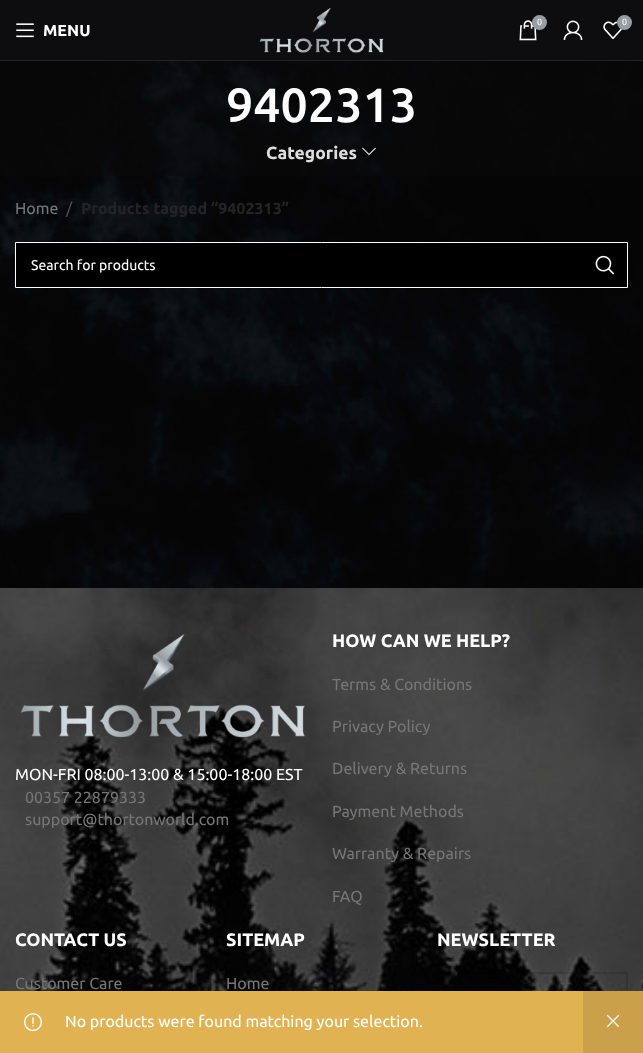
async function draw(canvas) {
  canvas.width = 643;
  canvas.height = 1053;
  const ctx = canvas.getContext('2d');
  ctx.miterLimit = 4;
  ctx.fontKerning = 'normal';
  function label(s, x, y, font, color) {
    ctx.font = font;
    ctx.fillStyle = color;
    ctx.fillText(s, x, y);
  }
  function rect(x, y, w, h, color) {
    ctx.fillStyle = color;
    ctx.fillRect(x, y, w, h);
  }
  async function image(src, x, y, w, h) {
    const img = new Image();
    img.src = src;
    await img.decode();
    ctx.drawImage(img, x, y, w, h);
  }

  rect(0, 0, 643, 1053, '#fff');
  rect(0, 0, 643, 60, '#0d0c0e');
  rect(0, 60, 643, 1, '#242325');
  await image('assets/img1.png', 259, 7, 125, 46);
  await image('assets/img2.png', 519, 20, 18, 21);
  ctx.fillStyle = '#989da3';
  ctx.beginPath();
  ctx.arc(539.5, 22.5, 7.5, 0, 2 * Math.PI);
  ctx.fill();
  label('0', 537, 25, '9px Ubuntu', '#fff');
  await image('assets/img3.png', 563, 20, 20, 20);
  await image('assets/img4.png', 603, 21, 20, 18);
  ctx.fillStyle = '#989da3';
  ctx.beginPath();
  ctx.arc(624.5, 22.5, 7.5, 0, 2 * Math.PI);
  ctx.fill();
  label('0', 622, 25, '9px Ubuntu', '#fff');
  await image('assets/img5.png', 16, 23, 18, 15);
  label('MENU', 43, 36, 'bold 16px Ubuntu', '#fff');
  await image('assets/img6.png', 0, 61, 643, 527);
  rect(0, 61, 643, 115, '#0a0a0a80');
  label('9402313', 226, 122, '500 48px Ubuntu', '#fff');
  label('Categories', 266, 159, 'bold 17.5px Ubuntu', '#ddd');
  await image('assets/img7.png', 362, 147, 14, 9);
  label('Home', 15, 214, '16px Ubuntu', '#767676');
  label('/', 66, 214, '16px Ubuntu', '#4c4c4c');
  label('Products tagged “9402313”', 81, 214, 'bold 16px Ubuntu', '#242424');
  ctx.fillStyle = '#000';
  ctx.beginPath();
  ctx.rect(15.5, 242.5, 612, 45);
  ctx.fill();
  ctx.strokeStyle = '#fff';
  ctx.stroke();
  label('Search for products', 31, 270, '14px Ubuntu', '#fff');
  await image('assets/img8.png', 595, 255, 20, 20);
  await image('assets/img11.png', 0, 588, 643, 403);
  ctx.strokeStyle = '#0000001c';
  ctx.lineWidth = 2;
  ctx.strokeRect(438, 973, 189, 42);
  rect(0, 991, 583, 62, '#e0b252');
  await image('assets/img9.png', 24, 1013, 18, 19);
  label('No products were found matching your selection.', 65, 1027, '16px Ubuntu', '#fff');
  rect(583, 991, 60, 62, '#caa04a');
  await image('assets/img10.png', 606, 1014, 14, 14);
  await image('assets/img12.png', 20, 634, 285, 104);
  label('MON-FRI 08:00-13:00 & 15:00-18:00 EST', 15, 780, '16px Ubuntu', '#fff');
  label('00357 22879333', 25, 803, '16px Ubuntu', '#767676');
  label('support@thortonworld.com', 25, 825, '16px Ubuntu', '#767676');
  label('HOW CAN WE HELP?', 332, 647, 'bold 18px Ubuntu', '#fff');
  label('Terms & Conditions', 332, 690, '16px Ubuntu', '#767676');
  label('Privacy Policy', 332, 732, '16px Ubuntu', '#767676');
  label('Delivery & Returns', 332, 774, '16px Ubuntu', '#767676');
  label('Payment Methods', 332, 817, '16px Ubuntu', '#767676');
  label('Warranty & Repairs', 332, 859, '16px Ubuntu', '#767676');
  label('FAQ', 332, 902, '16px Ubuntu', '#767676');
  label('CONTACT US', 15, 946, 'bold 18px Ubuntu', '#fff');
  label('Customer Care', 15, 989, '16px Ubuntu', '#767676');
  label('SITEMAP', 226, 946, 'bold 18px Ubuntu', '#fff');
  label('Home', 226, 989, '16px Ubuntu', '#767676');
  label('NEWSLETTER', 437, 946, 'bold 18px Ubuntu', '#fff');
}

draw(document.querySelector('canvas'));
